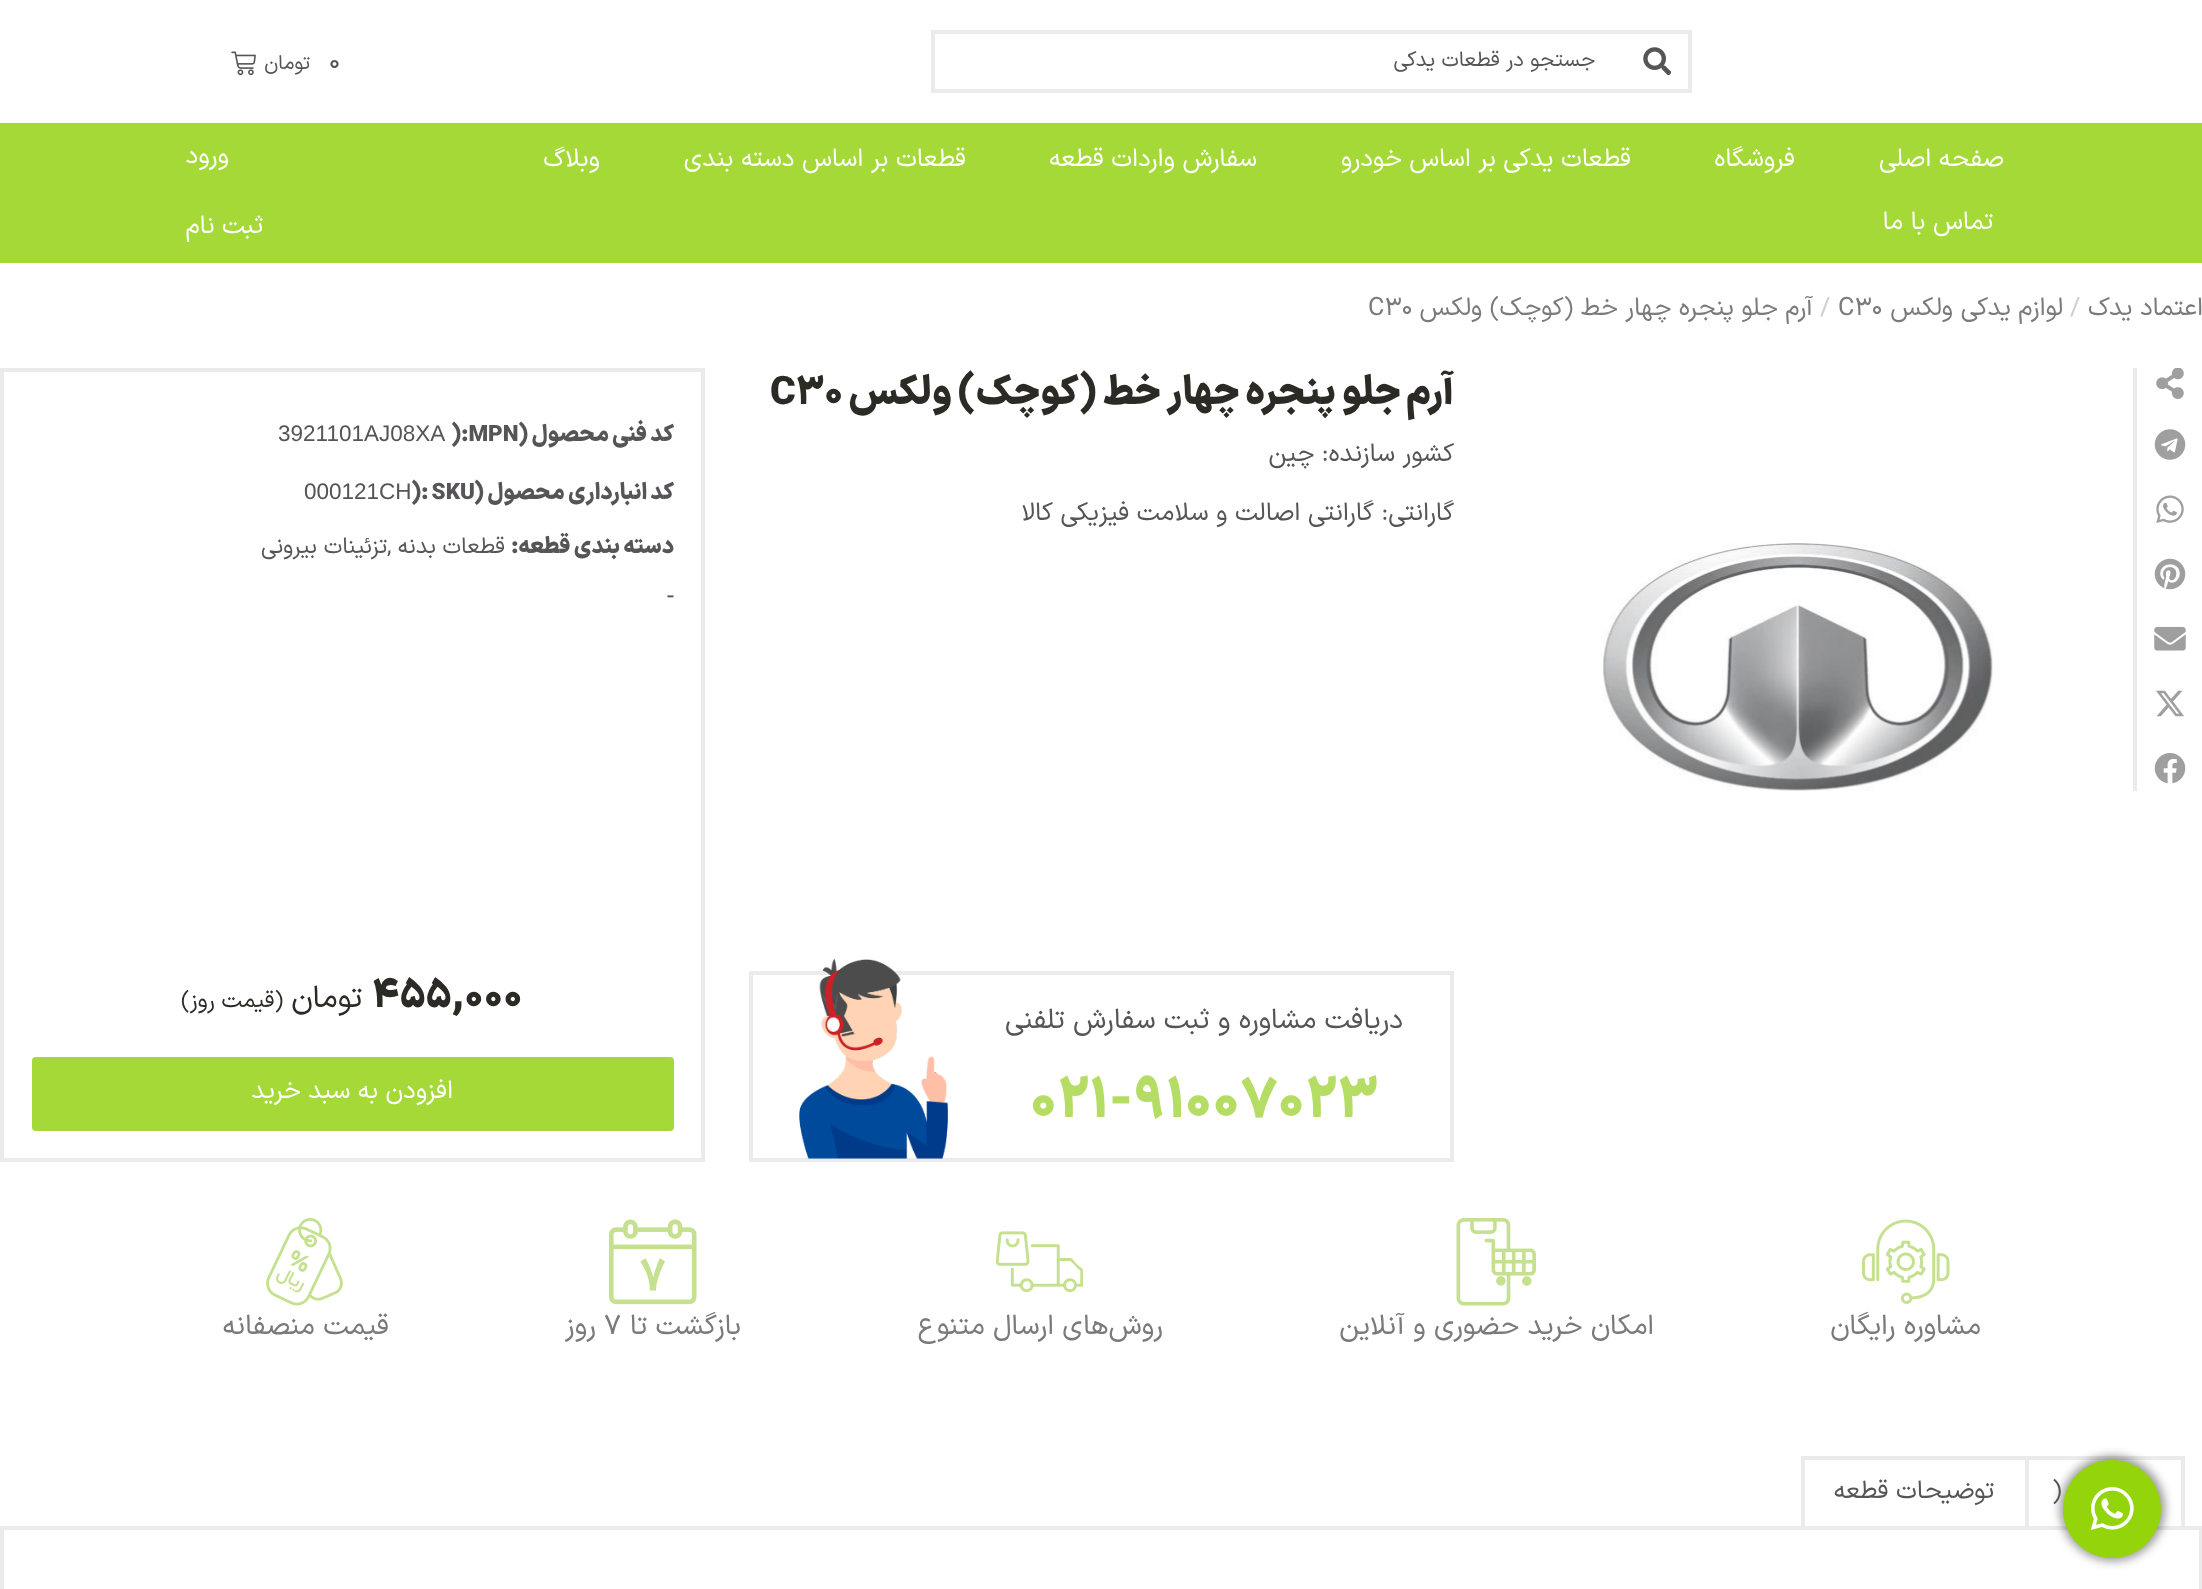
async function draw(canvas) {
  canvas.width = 2202;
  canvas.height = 1589;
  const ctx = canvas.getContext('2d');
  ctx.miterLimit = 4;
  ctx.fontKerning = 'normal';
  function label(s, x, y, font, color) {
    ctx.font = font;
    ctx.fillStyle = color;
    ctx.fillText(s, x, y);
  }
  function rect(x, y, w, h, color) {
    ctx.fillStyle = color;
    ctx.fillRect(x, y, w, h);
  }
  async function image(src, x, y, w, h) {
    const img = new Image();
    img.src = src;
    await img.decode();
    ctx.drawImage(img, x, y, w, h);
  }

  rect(0, 0, 2202, 1589, '#fff');
  ctx.strokeStyle = '#ebebeb';
  ctx.lineWidth = 4;
  ctx.strokeRect(933, 32, 757, 59);
  await image('assets/img1.png', 1643, 47, 28, 28);
  ctx.direction = 'rtl';
  label('جستجو در قطعات یدکی', 1595, 66, '21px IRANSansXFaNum', '#565456');
  ctx.direction = 'ltr';
  label('0', 329, 69, '25.25px IRANSansXFaNum', '#565456');
  ctx.direction = 'rtl';
  label('تومان', 310, 69, '20px IRANSansXFaNum', '#565456');
  await image('assets/img2.png', 231, 51, 25, 25);
  rect(2029, 1456, 155, 4, '#ebebeb');
  ctx.strokeRect(2, 1528, 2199, 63);
  ctx.fillStyle = '#00000066';
  ctx.filter = 'blur(5px)';
  ctx.beginPath();
  ctx.roundRect(2060, 1456, 105, 105, 52.5);
  ctx.fill();
  ctx.filter = 'none';
  ctx.fillStyle = '#93d50a';
  ctx.beginPath();
  ctx.arc(2112, 1509, 49, 0, 2 * Math.PI);
  ctx.fill();
  await image('assets/img3.png', 2090, 1487, 44, 43);
  rect(0, 123, 2202, 140, '#a4d937');
  label('صفحه اصلی', 2004, 166, '25.25px IRANSansXFaNum', '#fff');
  label('فروشگاه', 1795, 166, '25.25px IRANSansXFaNum', '#fff');
  label('قطعات یدکی بر اساس خودرو', 1631, 166, '25.25px IRANSansXFaNum', '#fff');
  label('سفارش واردات قطعه', 1257, 166, '25.25px IRANSansXFaNum', '#fff');
  label('قطعات بر اساس دسته بندی', 966, 166, '25.25px IRANSansXFaNum', '#fff');
  label('وبلاگ', 600, 166, '25.25px IRANSansXFaNum', '#fff');
  label('تماس با ما', 1993, 229, '25.25px IRANSansXFaNum', '#fff');
  label('ورود', 229, 163, '25.25px IRANSansXFaNum', '#fff');
  label('ثبت نام', 263, 233, '25.25px IRANSansXFaNum', '#fff');
  label('اعتماد یدک', 2203, 315, '25.25px IRANSansXFaNum', '#7a797b');
  ctx.direction = 'ltr';
  label('/', 2070, 315, '25.25px IRANSansXFaNum', '#cfcfd0');
  ctx.direction = 'rtl';
  label('لوازم یدکی ولکس', 2063, 315, '25.25px IRANSansXFaNum', '#7a797b');
  ctx.direction = 'ltr';
  label('C30', 1838, 315, '25.25px IRANSansXFaNum', '#7a797b');
  label('/', 1820, 315, '25.25px IRANSansXFaNum', '#cfcfd0');
  ctx.direction = 'rtl';
  label('آرم جلو پنجره چهار خط (کوچک) ولکس', 1813, 315, '25.25px IRANSansXFaNum', '#7a797b');
  ctx.direction = 'ltr';
  label('C30', 1368, 315, '25.25px IRANSansXFaNum', '#7a797b');
  rect(2133, 368, 4, 423, '#ebebeb');
  await image('assets/img4.png', 2156, 368, 28, 31);
  await image('assets/img5.png', 2154, 429, 32, 31);
  await image('assets/img6.png', 2156, 495, 28, 28);
  await image('assets/img7.png', 2154, 558, 32, 32);
  await image('assets/img8.png', 2154, 626, 32, 25);
  await image('assets/img9.png', 2156, 690, 28, 27);
  await image('assets/img10.png', 2154, 753, 32, 31);
  await image('assets/img11.png', 1603, 543, 390, 248);
  ctx.direction = 'rtl';
  label('آرم جلو پنجره چهار خط (کوچک) ولکس', 1454, 404, '900 39.25px IRANSansXFaNum', '#2c2a25');
  ctx.direction = 'ltr';
  label('C30', 770, 404, '900 39.25px IRANSansXFaNum', '#2c2a25');
  ctx.direction = 'rtl';
  label('کشور سازنده: چین', 1454, 461, '25.25px IRANSansXFaNum', '#565456');
  label('گارانتی: گارانتی اصالت و سلامت فیزیکی کالا', 1454, 520, '25.25px IRANSansXFaNum', '#565456');
  ctx.strokeRect(751, 973, 701, 187);
  await image('assets/img12.png', 799, 959, 150, 200);
  label('دریافت مشاوره و ثبت سفارش تلفنی', 1403, 1028, '28px IRANSansXFaNum', '#565456');
  ctx.direction = 'ltr';
  label('021-91007023', 1030, 1117, '900 56px IRANSansXFaNum', '#b5dd64');
  ctx.strokeRect(2, 370, 701, 790);
  ctx.direction = 'rtl';
  label('کد فنی محصول (', 674, 441, '900 22.5px IRANSansXFaNum', '#565456');
  ctx.direction = 'ltr';
  label('):MPN', 451, 441, '900 22.5px IRANSansXFaNum', '#565456');
  label('3921101AJ08XA', 278, 441, '22.5px Liberation Sans', '#565456');
  ctx.direction = 'rtl';
  label('کد انبارداری محصول (', 674, 499, '900 22.5px IRANSansXFaNum', '#565456');
  ctx.direction = 'ltr';
  label('): SKU', 411, 499, '900 22.5px IRANSansXFaNum', '#565456');
  label('000121CH', 304, 499, '22.5px Liberation Sans', '#565456');
  ctx.direction = 'rtl';
  label('دسته بندی قطعه:', 674, 553, '900 22.5px IRANSansXFaNum', '#565456');
  label('قطعات بدنه', 505, 553, '22.5px IRANSansXFaNum', '#565456');
  ctx.direction = 'ltr';
  label(',', 387, 553, '22.5px IRANSansXFaNum', '#565456');
  ctx.direction = 'rtl';
  label('تزئینات بیرونی', 387, 553, '22.5px IRANSansXFaNum', '#565456');
  ctx.direction = 'ltr';
  label('-', 667, 604, '25.25px IRANSansXFaNum', '#565456');
  label('455,000', 372, 1007, '900 39.25px IRANSansXFaNum', '#2c2a25');
  ctx.direction = 'rtl';
  label('تومان', 362, 1007, '31px IRANSansXFaNum', '#2c2a25');
  label('(قیمت روز)', 283, 1007, '22.5px IRANSansXFaNum', '#2c2a25');
  ctx.fillStyle = '#a4d937';
  ctx.beginPath();
  ctx.roundRect(34, 1059, 638, 70, 2);
  ctx.fill();
  ctx.strokeStyle = '#a4d937';
  ctx.stroke();
  label('افزودن به سبد خرید', 453, 1098, '25.25px IRANSansXFaNum', '#fff');
  await image('assets/img13.png', 1862, 1219, 88, 85);
  label('مشاوره رایگان', 1981, 1334, '28px IRANSansXFaNum', '#7a797b');
  await image('assets/img14.png', 1456, 1218, 80, 88);
  label('امکان خرید حضوری و آنلاین', 1654, 1334, '28px IRANSansXFaNum', '#7a797b');
  await image('assets/img15.png', 996, 1231, 87, 62);
  label('روش‌های ارسال متنوع', 1163, 1334, '28px IRANSansXFaNum', '#7a797b');
  await image('assets/img16.png', 609, 1219, 88, 86);
  label('بازگشت تا', 741, 1334, '28px IRANSansXFaNum', '#7a797b');
  ctx.direction = 'ltr';
  label('7', 604, 1334, '28px IRANSansXFaNum', '#7a797b');
  ctx.direction = 'rtl';
  label('روز', 596, 1334, '28px IRANSansXFaNum', '#7a797b');
  await image('assets/img17.png', 266, 1218, 77, 88);
  label('قیمت منصفانه', 389, 1334, '28px IRANSansXFaNum', '#7a797b');
  rect(2181, 1456, 4, 70, '#ebebeb');
  ctx.direction = 'ltr';
  label(')', 2052, 1498, '25.25px IRANSansXFaNum', '#565456');
  rect(1801, 1456, 227, 4, '#ebebeb');
  rect(2025, 1456, 4, 70, '#ebebeb');
  rect(1801, 1456, 4, 70, '#ebebeb');
  ctx.direction = 'rtl';
  label('توضیحات قطعه', 1994, 1498, '25.25px IRANSansXFaNum', '#565456');
}

draw(document.querySelector('canvas'));
